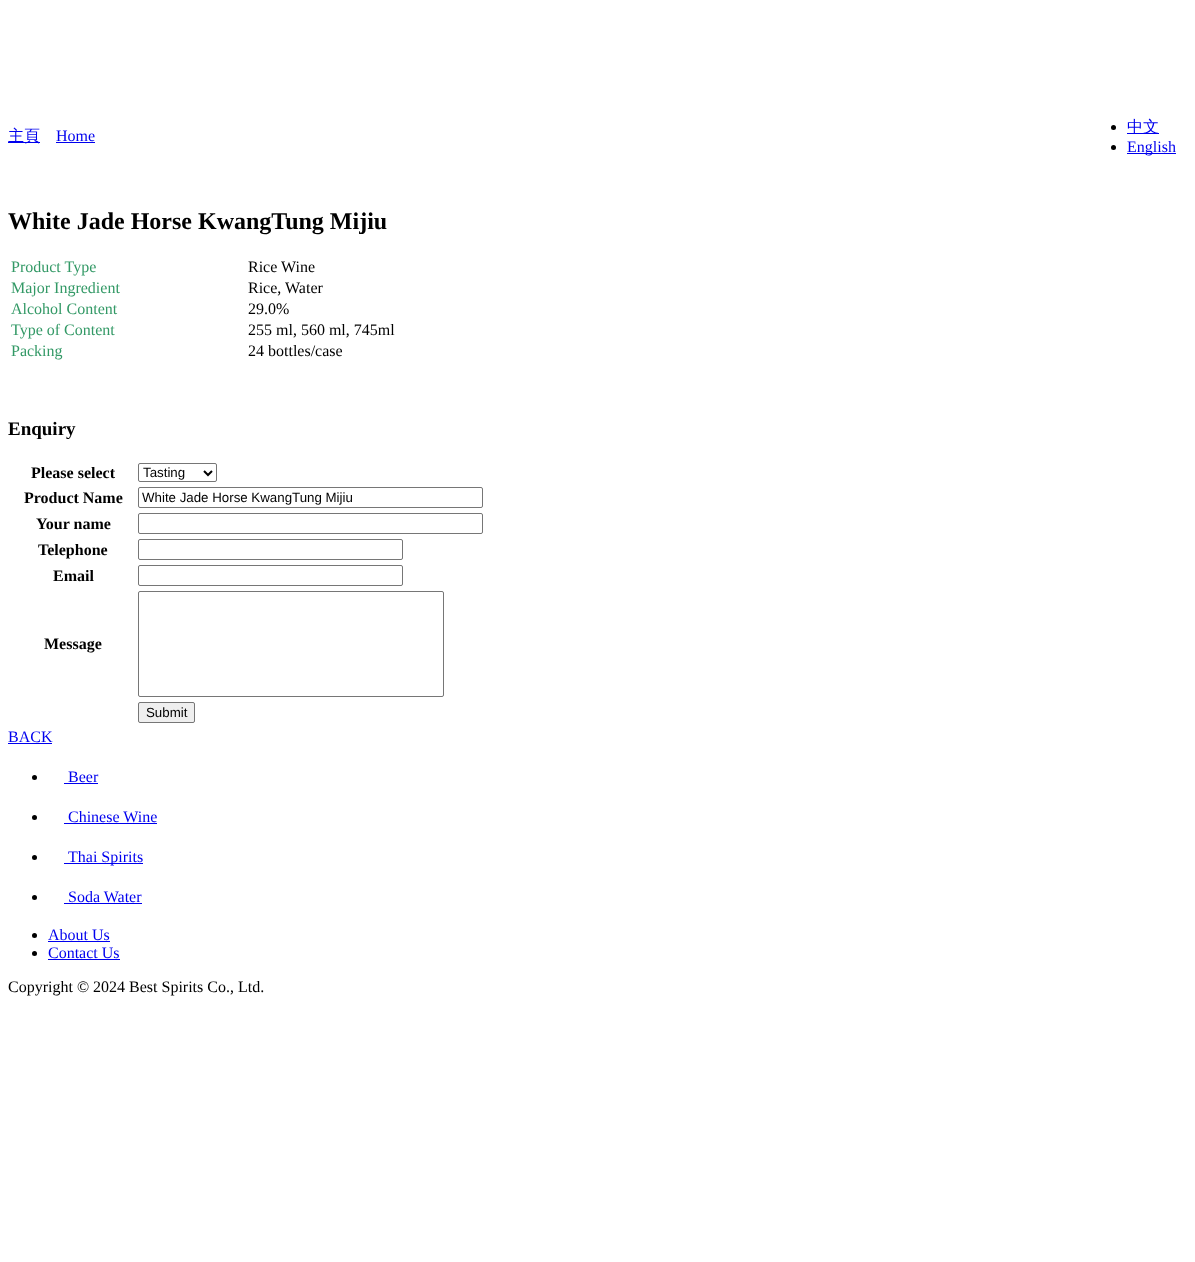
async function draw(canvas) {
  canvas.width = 1195;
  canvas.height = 1262;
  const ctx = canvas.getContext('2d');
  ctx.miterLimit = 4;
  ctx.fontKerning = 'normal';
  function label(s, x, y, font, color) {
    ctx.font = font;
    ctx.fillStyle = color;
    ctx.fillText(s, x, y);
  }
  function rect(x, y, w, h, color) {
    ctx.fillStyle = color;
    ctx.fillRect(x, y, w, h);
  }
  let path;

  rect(0, 0, 1195, 1262, '#fff');
  rect(8, 142, 32, 1, '#00e');
  label('主頁', 8, 141, '500 16px WenQuanYi Zen Hei', '#00e');
  label('Home', 56, 141, '16px Liberation Serif', '#00e');
  rect(56, 142, 39, 1, '#00e');
  ctx.fillStyle = '#000';
  ctx.beginPath();
  ctx.arc(1113.5, 127.5, 2.5, 0, 2 * Math.PI);
  ctx.fill();
  rect(1127, 133, 32, 1, '#00e');
  label('中文', 1127, 132, '500 16px WenQuanYi Zen Hei', '#00e');
  ctx.fillStyle = '#000';
  ctx.beginPath();
  ctx.arc(1113.5, 147.5, 2.5, 0, 2 * Math.PI);
  ctx.fill();
  rect(1127, 153, 49, 1, '#00e');
  label('English', 1127, 152, '16px Liberation Serif', '#00e');
  label('White Jade Horse KwangTung Mijiu', 8, 229, 'bold 24px Liberation Serif', '#000');
  label('Product Type', 11, 272, '16px Liberation Serif', '#396');
  label('Rice Wine', 248, 272, '16px Liberation Serif', '#000');
  label('Major Ingredient', 11, 293, '16px Liberation Serif', '#396');
  label('Rice, Water', 248, 293, '16px Liberation Serif', '#000');
  label('Alcohol Content', 11, 314, '16px Liberation Serif', '#396');
  label('29.0%', 248, 314, '16px Liberation Serif', '#000');
  label('Type of Content', 11, 335, '16px Liberation Serif', '#396');
  label('255 ml, 560 ml, 745ml', 248, 335, '16px Liberation Serif', '#000');
  label('Packing', 11, 356, '16px Liberation Serif', '#396');
  label('24 bottles/case', 248, 356, '16px Liberation Serif', '#000');
  label('Enquiry', 8, 435, 'bold 19px Liberation Serif', '#000');
  label('Please select', 31, 478, 'bold 16px Liberation Serif', '#000');
  ctx.beginPath();
  ctx.roundRect(138.5, 463.5, 78, 18, 1.5);
  ctx.strokeStyle = '#767676';
  ctx.stroke();
  path = new Path2D('M204 471L208 475L212 471');
  ctx.strokeStyle = '#000';
  ctx.lineWidth = 2;
  ctx.stroke(path);
  label('Tasting', 143, 477, '13.3px Liberation Sans', '#000');
  label('Product Name', 24, 503, 'bold 16px Liberation Serif', '#000');
  ctx.beginPath();
  ctx.roundRect(138.5, 487.5, 344, 20, 1.5);
  ctx.strokeStyle = '#767676';
  ctx.lineWidth = 1;
  ctx.stroke();
  label('White Jade Horse KwangTung Mijiu', 142, 502, '13.3px Liberation Sans', '#000');
  label('Your name', 36, 529, 'bold 16px Liberation Serif', '#000');
  ctx.beginPath();
  ctx.roundRect(138.5, 513.5, 344, 20, 1.5);
  ctx.stroke();
  label('Telephone', 38, 555, 'bold 16px Liberation Serif', '#000');
  ctx.beginPath();
  ctx.roundRect(138.5, 539.5, 264, 20, 1.5);
  ctx.stroke();
  label('Email', 53, 581, 'bold 16px Liberation Serif', '#000');
  ctx.beginPath();
  ctx.roundRect(138.5, 565.5, 264, 20, 1.5);
  ctx.stroke();
  label('Message', 44, 649, 'bold 16px Liberation Serif', '#000');
  ctx.beginPath();
  ctx.roundRect(138.5, 591.5, 305, 105, 1.5);
  ctx.stroke();
  ctx.fillStyle = '#efefef';
  ctx.beginPath();
  ctx.roundRect(138.5, 702.5, 56, 20, 1.5);
  ctx.fill();
  ctx.stroke();
  label('Submit', 146, 717, '13.3px Liberation Sans', '#000');
  label('BACK', 8, 742, '16px Liberation Serif', '#00e');
  rect(8, 743, 44, 1, '#00e');
  ctx.fillStyle = '#000';
  ctx.beginPath();
  ctx.arc(34.5, 777.5, 2.5, 0, 2 * Math.PI);
  ctx.fill();
  label('Beer', 68, 782, '16px Liberation Serif', '#00e');
  rect(64, 783, 34, 1, '#00e');
  ctx.fillStyle = '#000';
  ctx.beginPath();
  ctx.arc(34.5, 817.5, 2.5, 0, 2 * Math.PI);
  ctx.fill();
  label('Chinese Wine', 68, 822, '16px Liberation Serif', '#00e');
  rect(64, 823, 93, 1, '#00e');
  ctx.fillStyle = '#000';
  ctx.beginPath();
  ctx.arc(34.5, 857.5, 2.5, 0, 2 * Math.PI);
  ctx.fill();
  rect(64, 863, 79, 1, '#00e');
  label('Thai Spirits', 68, 862, '16px Liberation Serif', '#00e');
  ctx.fillStyle = '#000';
  ctx.beginPath();
  ctx.arc(34.5, 897.5, 2.5, 0, 2 * Math.PI);
  ctx.fill();
  label('Soda Water', 68, 902, '16px Liberation Serif', '#00e');
  rect(64, 903, 78, 1, '#00e');
  ctx.fillStyle = '#000';
  ctx.beginPath();
  ctx.arc(34.5, 935.5, 2.5, 0, 2 * Math.PI);
  ctx.fill();
  label('About Us', 48, 940, '16px Liberation Serif', '#00e');
  rect(48, 941, 62, 1, '#00e');
  ctx.fillStyle = '#000';
  ctx.beginPath();
  ctx.arc(34.5, 953.5, 2.5, 0, 2 * Math.PI);
  ctx.fill();
  label('Contact Us', 48, 958, '16px Liberation Serif', '#00e');
  rect(48, 959, 72, 1, '#00e');
  label('Copyright © 2024 Best Spirits Co., Ltd.', 8, 992, '16px Liberation Serif', '#000');
}

draw(document.querySelector('canvas'));
